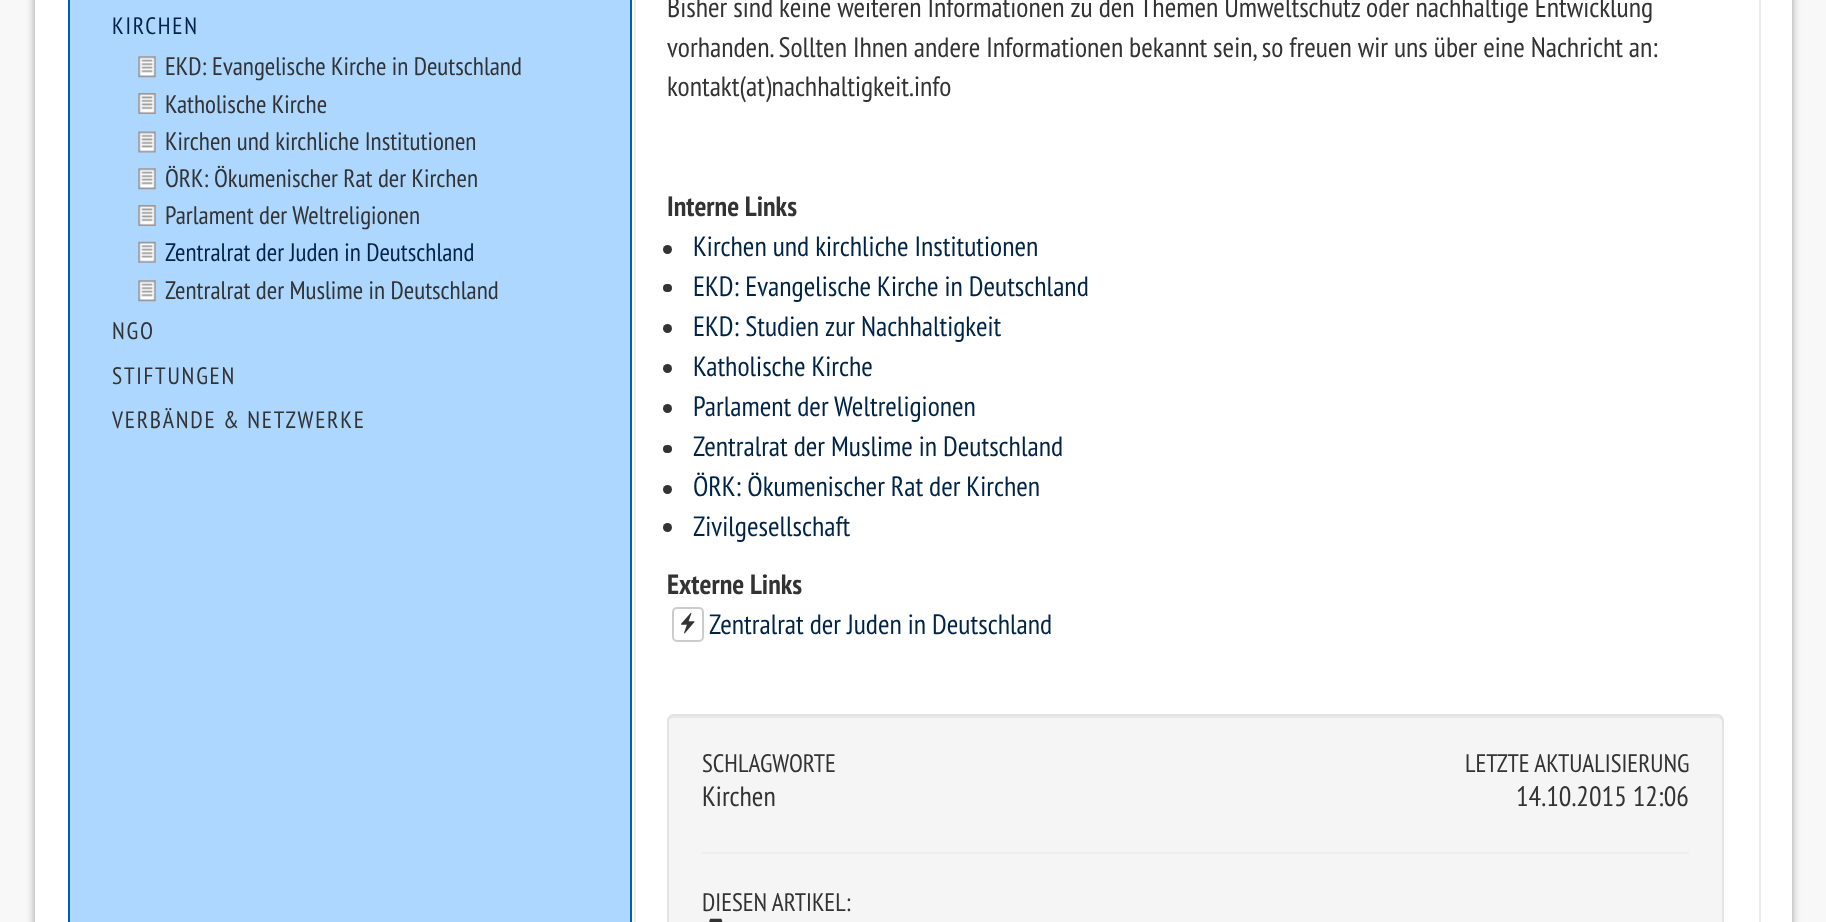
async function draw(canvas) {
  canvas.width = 1826;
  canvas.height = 922;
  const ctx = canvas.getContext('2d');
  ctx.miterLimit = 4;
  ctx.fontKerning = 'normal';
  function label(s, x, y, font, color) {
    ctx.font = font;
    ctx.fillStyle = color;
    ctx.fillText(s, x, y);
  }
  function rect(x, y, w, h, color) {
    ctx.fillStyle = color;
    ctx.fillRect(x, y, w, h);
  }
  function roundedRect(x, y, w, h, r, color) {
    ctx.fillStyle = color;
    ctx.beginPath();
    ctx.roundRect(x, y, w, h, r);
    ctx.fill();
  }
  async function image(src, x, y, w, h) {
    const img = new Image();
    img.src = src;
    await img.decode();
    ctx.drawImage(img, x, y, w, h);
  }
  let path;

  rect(0, 0, 1826, 922, '#f8f8f8');
  ctx.fillStyle = '#999';
  ctx.filter = 'blur(4.5px)';
  ctx.beginPath();
  ctx.rect(35, -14, 1757, 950);
  ctx.fill();
  ctx.filter = 'none';
  rect(35, 0, 1757, 922, '#fff');
  ctx.fillStyle = '#add7ff';
  ctx.beginPath();
  ctx.rect(69, -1, 562, 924);
  ctx.fill();
  ctx.strokeStyle = '#005eb8';
  ctx.lineWidth = 2;
  ctx.stroke();
  ctx.strokeStyle = '#ebebeb';
  ctx.strokeRect(635, -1, 1125, 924);
  ctx.letterSpacing = '1.75px';
  label('KIRCHEN', 112, 34, '23.75px PT Sans Narrow', '#002447');
  await image('assets/img1.png', 138, 56, 18, 22);
  ctx.letterSpacing = '0px';
  label('EKD: Evangelische Kirche in Deutschland', 165, 75, '25.25px PT Sans Narrow', '#333');
  await image('assets/img2.png', 138, 93, 18, 21);
  label('Katholische Kirche', 165, 113, '25.25px PT Sans Narrow', '#333');
  await image('assets/img3.png', 138, 131, 18, 22);
  label('Kirchen und kirchliche Institutionen', 165, 150, '25.25px PT Sans Narrow', '#333');
  await image('assets/img1.png', 138, 168, 18, 22);
  label('ÖRK: Ökumenischer Rat der Kirchen', 165, 187, '25.25px PT Sans Narrow', '#333');
  await image('assets/img2.png', 138, 205, 18, 21);
  label('Parlament der Weltreligionen', 165, 224, '25.25px PT Sans Narrow', '#333');
  await image('assets/img4.png', 138, 241, 18, 22);
  label('Zentralrat der Juden in Deutschland', 165, 261, '25.25px PT Sans Narrow', '#002447');
  await image('assets/img1.png', 138, 280, 18, 22);
  label('Zentralrat der Muslime in Deutschland', 165, 299, '25.25px PT Sans Narrow', '#333');
  ctx.letterSpacing = '1.75px';
  label('NGO', 112, 339, '23.75px PT Sans Narrow', '#333');
  label('STIFTUNGEN', 112, 384, '23.75px PT Sans Narrow', '#333');
  label('VERBÄNDE & NETZWERKE', 112, 428, '23.75px PT Sans Narrow', '#333');
  ctx.letterSpacing = '0px';
  label('Bisher sind keine weiteren Informationen zu den Themen Umweltschutz oder nachhaltige Entwicklung', 667, 17, '28px PT Sans Narrow', '#333');
  label('vorhanden. Sollten Ihnen andere Informationen bekannt sein, so freuen wir uns über eine Nachricht an:', 667, 57, '28px PT Sans Narrow', '#333');
  label('kontakt(at)nachhaltigkeit.info', 667, 96, '28px PT Sans Narrow', '#333');
  label('Interne Links', 667, 216, 'bold 28px PT Sans Narrow', '#333');
  ctx.beginPath();
  ctx.arc(667.5, 249.5, 4.5, 0, 2 * Math.PI);
  ctx.fill();
  label('Kirchen und kirchliche Institutionen', 693, 256, '28px PT Sans Narrow', '#002447');
  roundedRect(663, 284, 9, 8, 4, '#333');
  label('EKD: Evangelische Kirche in Deutschland', 693, 296, '28px PT Sans Narrow', '#002447');
  ctx.fillStyle = '#333';
  ctx.beginPath();
  ctx.arc(667.5, 328.5, 4.5, 0, 2 * Math.PI);
  ctx.fill();
  label('EKD: Studien zur Nachhaltigkeit', 693, 336, '28px PT Sans Narrow', '#002447');
  ctx.fillStyle = '#333';
  ctx.beginPath();
  ctx.arc(667.5, 368.5, 4.5, 0, 2 * Math.PI);
  ctx.fill();
  label('Katholische Kirche', 693, 376, '28px PT Sans Narrow', '#002447');
  ctx.fillStyle = '#333';
  ctx.beginPath();
  ctx.arc(667.5, 408.5, 4.5, 0, 2 * Math.PI);
  ctx.fill();
  label('Parlament der Weltreligionen', 693, 416, '28px PT Sans Narrow', '#002447');
  roundedRect(663, 445, 9, 8, 4, '#333');
  label('Zentralrat der Muslime in Deutschland', 693, 456, '28px PT Sans Narrow', '#002447');
  ctx.fillStyle = '#333';
  ctx.beginPath();
  ctx.arc(667.5, 489.5, 4.5, 0, 2 * Math.PI);
  ctx.fill();
  label('ÖRK: Ökumenischer Rat der Kirchen', 693, 496, '28px PT Sans Narrow', '#002447');
  ctx.fillStyle = '#333';
  ctx.beginPath();
  ctx.arc(667.5, 527.5, 4.5, 0, 2 * Math.PI);
  ctx.fill();
  label('Zivilgesellschaft', 693, 536, '28px PT Sans Narrow', '#002447');
  label('Externe Links', 667, 594, 'bold 28px PT Sans Narrow', '#333');
  ctx.beginPath();
  ctx.roundRect(673, 608, 30, 33, 4);
  ctx.strokeStyle = '#ccc';
  ctx.stroke();
  await image('assets/img5.png', 681, 612, 14, 22);
  label('Zentralrat der Juden in Deutschland', 709, 634, '28px PT Sans Narrow', '#002447');
  roundedRect(667, 714, 1057, 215, 7, '#f5f5f5');
  ctx.fillStyle = '#e9e9e9';
  path = new Path2D('M674 718H1717C1720 718 1722 720 1722 723V721C1722 718 1720 716 1717 716H674C672 716 669 718 669 720C670 719 672 718 674 718Z');
  ctx.fill(path);
  ctx.beginPath();
  ctx.roundRect(668, 715, 1055, 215, 6);
  ctx.strokeStyle = '#e3e3e3';
  ctx.stroke();
  label('SCHLAGWORTE', 702, 772, '25.25px PT Sans Narrow', '#333');
  label('Kirchen', 702, 806, '28px PT Sans Narrow', '#333');
  label('LETZTE AKTUALISIERUNG', 1465, 772, '25.25px PT Sans Narrow', '#333');
  label('14.10.2015 12:06', 1516, 806, '28px PT Sans Narrow', '#333');
  rect(702, 852, 987, 2, '#eee');
  label('DIESEN ARTIKEL:', 702, 911, '25.25px PT Sans Narrow', '#333');
  await image('assets/img6.png', 709, 918, 14, 4);
}

draw(document.querySelector('canvas'));
